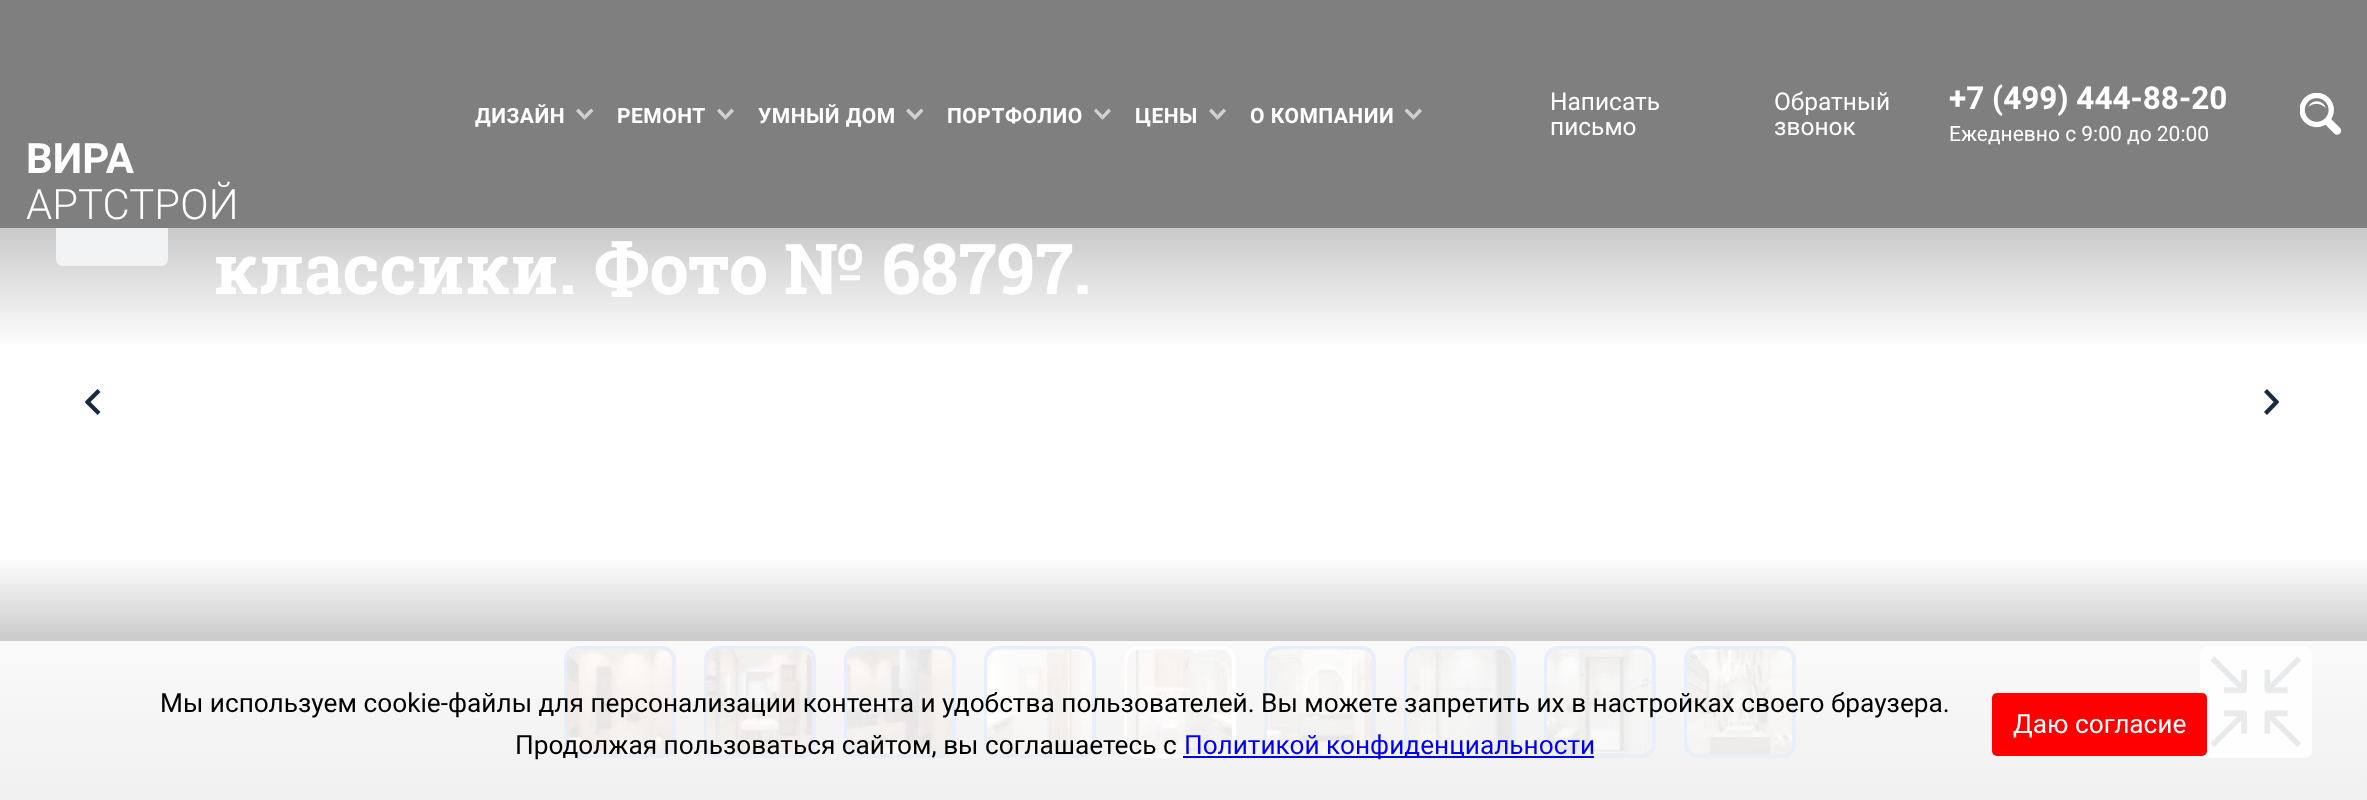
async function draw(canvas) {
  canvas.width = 2367;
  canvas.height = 800;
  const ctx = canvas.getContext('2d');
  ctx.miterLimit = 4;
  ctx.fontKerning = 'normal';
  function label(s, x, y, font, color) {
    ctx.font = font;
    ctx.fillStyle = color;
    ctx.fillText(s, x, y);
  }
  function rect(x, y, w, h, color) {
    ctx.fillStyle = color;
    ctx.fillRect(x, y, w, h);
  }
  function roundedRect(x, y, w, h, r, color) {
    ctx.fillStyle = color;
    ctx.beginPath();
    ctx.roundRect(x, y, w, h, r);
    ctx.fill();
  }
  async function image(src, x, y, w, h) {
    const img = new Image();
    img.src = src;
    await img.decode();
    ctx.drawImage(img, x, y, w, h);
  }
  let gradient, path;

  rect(0, 0, 2367, 800, '#fff');
  gradient = ctx.createLinearGradient(1184, 350, 1184, 0);
  gradient.addColorStop(0, '#fff');
  gradient.addColorStop(1, '#666');
  ctx.fillStyle = gradient;
  ctx.fillRect(0, 228, 2367, 116);
  roundedRect(56, 154, 112, 112, 7, '#f2f3f4');
  rect(0, 0, 2367, 228, '#7f7f7f');
  ctx.letterSpacing = '0.5px';
  label('ДИЗАЙН', 475, 123, 'bold 21px Roboto', '#fff');
  ctx.fillStyle = '#d1d1d1';
  path = new Path2D('M593.5 111L584.5 120V115L591 108.5Z');
  ctx.fill(path);
  ctx.fillStyle = '#ffffffa3';
  path = new Path2D('M584.5 120L576 111L578.5 108.5L584.5 115Z');
  ctx.fill(path);
  label('РЕМОНТ', 617, 123, 'bold 21px Roboto', '#fff');
  ctx.fillStyle = '#d1d1d1';
  path = new Path2D('M734 111L725.5 120V115L731.5 108.5Z');
  ctx.fill(path);
  ctx.fillStyle = '#ffffffa3';
  path = new Path2D('M725.5 120L717 111L719.5 108.5L725.5 115Z');
  ctx.fill(path);
  label('УМНЫЙ ДОМ', 758, 123, 'bold 21px Roboto', '#fff');
  ctx.fillStyle = '#d1d1d1';
  path = new Path2D('M923.5 111L915 120V115L921 108.5ZM915 120L906 111L908.5 108.5L915 115Z');
  ctx.fill(path);
  label('ПОРТФОЛИО', 947, 123, 'bold 21px Roboto', '#fff');
  ctx.fillStyle = '#d1d1d1';
  path = new Path2D('M1111 111L1102.5 120V115L1108.5 108.5Z');
  ctx.fill(path);
  ctx.fillStyle = '#ffffffa3';
  path = new Path2D('M1102.5 120L1094 111L1096 108.5L1102.5 115Z');
  ctx.fill(path);
  label('ЦЕНЫ', 1135, 123, 'bold 21px Roboto', '#fff');
  ctx.fillStyle = '#d1d1d1';
  path = new Path2D('M1226 111L1217.5 120V115L1223.5 108.5Z');
  ctx.fill(path);
  ctx.fillStyle = '#ffffffa3';
  path = new Path2D('M1217.5 120L1209 111L1211.5 108.5L1217.5 115Z');
  ctx.fill(path);
  label('О КОМПАНИИ', 1250, 123, 'bold 21px Roboto', '#fff');
  ctx.fillStyle = '#d1d1d1';
  path = new Path2D('M1422 111L1413.5 120V115L1419.5 108.5Z');
  ctx.fill(path);
  ctx.fillStyle = '#ffffffa3';
  path = new Path2D('M1413.5 120L1404.5 111L1407 108.5L1413.5 115Z');
  ctx.fill(path);
  ctx.letterSpacing = '0px';
  label('Написать', 1550, 110, '24.5px Roboto', '#fff');
  label('письмо', 1550, 135, '24.5px Roboto', '#fff');
  label('Обратный', 1774, 110, '24.5px Roboto', '#fff');
  label('звонок', 1774, 135, '24.5px Roboto', '#fff');
  label('+7 (499) 444-88-20', 1949, 109, 'bold 31.5px Roboto', '#fff');
  label('Ежедневно с 9:00 до 20:00', 1949, 141, '21px Roboto', '#fff');
  await image('assets/img1.png', 2300, 93, 42, 42);
  label('ВИРА', 26, 173, 'bold 42px Roboto', '#fff');
  label('АРТСТРОЙ', 26, 219, '300 42px Roboto', '#fff');
  label('классики. Фото № 68797.', 213, 294, 'bold 70px Roboto Slab', '#fff');
  ctx.fillStyle = '#172a3f';
  path = new Path2D('M88 399.5L100.5 412L97.5 415L85 402.5Z');
  ctx.fill(path);
  path = new Path2D('M85 401.5L97.5 389L100.5 392L88 404.5Z');
  ctx.fill(path);
  path = new Path2D('M2264 412L2276 399.5L2279 402.5L2267 415Z');
  ctx.fill(path);
  path = new Path2D('M2267 389L2279 401.5L2276 404.5L2264 392Z');
  ctx.fill(path);
  gradient = ctx.createLinearGradient(1184, 556, 1184, 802);
  gradient.addColorStop(0, '#fff');
  gradient.addColorStop(1, '#666');
  ctx.fillStyle = gradient;
  ctx.fillRect(0, 560, 2367, 81);
  gradient = ctx.createLinearGradient(1184, 556, 1184, 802);
  gradient.addColorStop(0, '#fff');
  gradient.addColorStop(1, '#f0f0f0');
  ctx.fillStyle = gradient;
  ctx.fillRect(0, 641, 2367, 159);
  ctx.beginPath();
  ctx.roundRect(566, 648, 108, 108, 12);
  ctx.strokeStyle = '#e9eff8';
  ctx.lineWidth = 4;
  ctx.stroke();
  await image('assets/img2.png', 567, 649, 105, 106);
  ctx.beginPath();
  ctx.roundRect(706, 648, 108, 108, 12);
  ctx.stroke();
  await image('assets/img3.png', 707, 649, 105, 106);
  ctx.beginPath();
  ctx.roundRect(846, 648, 108, 108, 12);
  ctx.stroke();
  await image('assets/img4.png', 847, 649, 105, 106);
  ctx.beginPath();
  ctx.roundRect(986, 648, 108, 108, 12);
  ctx.stroke();
  await image('assets/img5.png', 987, 649, 105, 106);
  ctx.beginPath();
  ctx.roundRect(1126, 648, 108, 108, 12);
  ctx.strokeStyle = '#fff';
  ctx.stroke();
  await image('assets/img6.png', 1127, 649, 105, 106);
  ctx.beginPath();
  ctx.roundRect(1266, 648, 108, 108, 12);
  ctx.strokeStyle = '#e9eff8';
  ctx.stroke();
  await image('assets/img7.png', 1267, 649, 105, 106);
  ctx.beginPath();
  ctx.roundRect(1406, 648, 108, 108, 12);
  ctx.stroke();
  await image('assets/img8.png', 1407, 649, 105, 106);
  ctx.beginPath();
  ctx.roundRect(1546, 648, 108, 108, 12);
  ctx.stroke();
  await image('assets/img9.png', 1547, 649, 105, 106);
  ctx.beginPath();
  ctx.roundRect(1686, 648, 108, 108, 12);
  ctx.stroke();
  await image('assets/img10.png', 1687, 649, 105, 106);
  roundedRect(2200, 646, 112, 112, 7, '#fefefe');
  await image('assets/img11.png', 2210, 656, 91, 92);
  label('Мы используем cookie-файлы для персонализации контента и удобства пользователей. Вы можете запретить их в настройках своего браузера.', 160, 712, '26.25px Roboto', '#000');
  label('Продолжая пользоваться сайтом, вы соглашаетесь с', 515, 754, '26.25px Roboto', '#000');
  rect(1183, 756, 411, 2, '#00e');
  label('Политикой конфиденциальности', 1184, 754, '26.25px Roboto', '#00e');
  roundedRect(1992, 693, 215, 63, 5, '#f00');
  label('Даю согласие', 2013, 733, '26.25px Roboto', '#fff');
}

draw(document.querySelector('canvas'));
